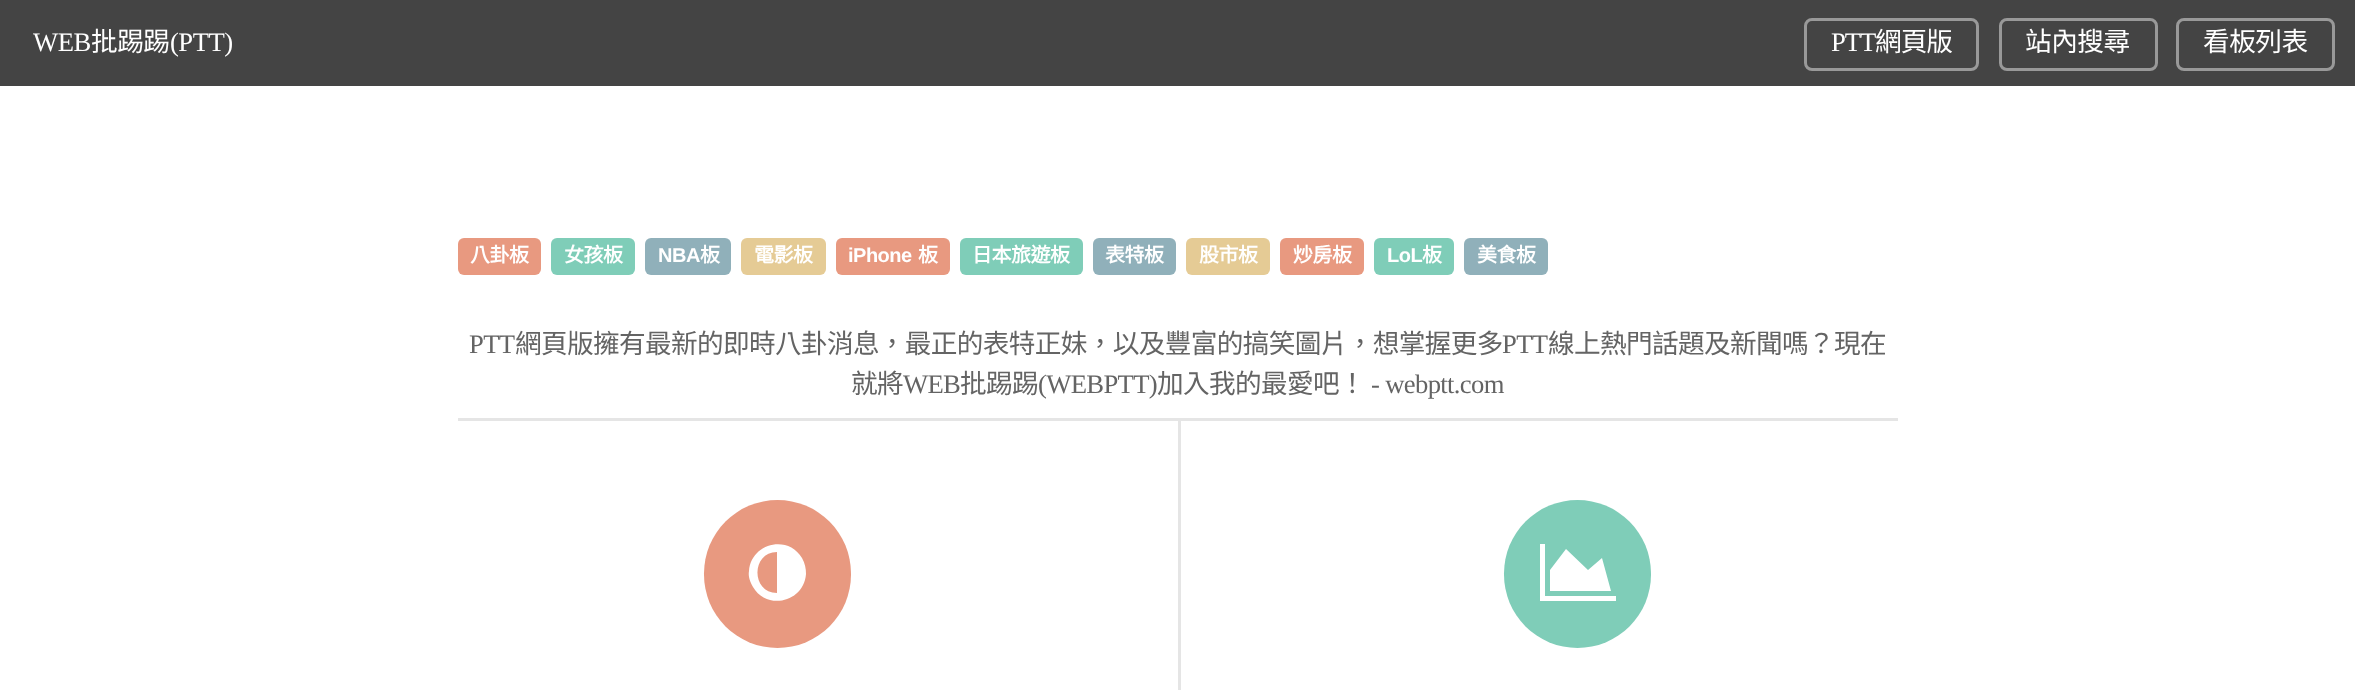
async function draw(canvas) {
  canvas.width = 2355;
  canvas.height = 690;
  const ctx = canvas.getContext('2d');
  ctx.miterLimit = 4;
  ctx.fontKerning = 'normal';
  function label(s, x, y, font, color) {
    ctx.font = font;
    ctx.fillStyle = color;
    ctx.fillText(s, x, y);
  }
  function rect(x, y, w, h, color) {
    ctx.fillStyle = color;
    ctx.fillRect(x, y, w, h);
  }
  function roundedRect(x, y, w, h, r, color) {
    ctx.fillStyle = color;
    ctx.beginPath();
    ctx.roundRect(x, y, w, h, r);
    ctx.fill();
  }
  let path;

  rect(0, 0, 2355, 690, '#fff');
  rect(0, 0, 2355, 86, '#444');
  ctx.letterSpacing = '-0.5px';
  label('WEB', 33, 51, '26.65px Liberation Serif', '#fff');
  label('批踢踢', 91, 51, '26.65px Noto Sans CJK TC', '#fff');
  label('(PTT)', 170, 51, '26.65px Liberation Serif', '#fff');
  ctx.beginPath();
  ctx.roundRect(1805.5, 19.5, 172, 50, 6.5);
  ctx.strokeStyle = '#999';
  ctx.lineWidth = 3;
  ctx.stroke();
  ctx.letterSpacing = '-1px';
  label('PTT', 1831, 51, '26.65px Liberation Serif', '#fff');
  label('網頁版', 1875, 51, '26.65px Noto Sans CJK TC', '#fff');
  ctx.beginPath();
  ctx.roundRect(2000.5, 19.5, 156, 50, 6.5);
  ctx.stroke();
  ctx.letterSpacing = '-0.5px';
  label('站內搜尋', 2025, 51, '26.65px Noto Sans CJK TC', '#fff');
  ctx.beginPath();
  ctx.roundRect(2177.5, 19.5, 156, 50, 6.5);
  ctx.stroke();
  label('看板列表', 2203, 51, '26.65px Noto Sans CJK TC', '#fff');
  roundedRect(458, 238, 83, 37, 6, '#e89980');
  label('八卦板', 470, 262, 'bold 20px Noto Sans CJK TC', '#fff');
  roundedRect(551, 238, 84, 37, 6, '#7fcdb8');
  label('女孩板', 564, 262, 'bold 20px Noto Sans CJK TC', '#fff');
  roundedRect(645, 238, 86, 37, 6, '#90b0ba');
  label('NBA', 658, 262, 'bold 20px Liberation Sans', '#fff');
  label('板', 700, 262, 'bold 20px Noto Sans CJK TC', '#fff');
  roundedRect(741, 238, 85, 37, 6, '#e5cb95');
  label('電影板', 754, 262, 'bold 20px Noto Sans CJK TC', '#fff');
  roundedRect(836, 238, 114, 37, 6, '#e89980');
  label('iPhone', 848, 262, 'bold 20px Liberation Sans', '#fff');
  label('板', 918, 262, 'bold 20px Noto Sans CJK TC', '#fff');
  roundedRect(960, 238, 123, 37, 6, '#7fcdb8');
  label('日本旅遊板', 972, 262, 'bold 20px Noto Sans CJK TC', '#fff');
  roundedRect(1093, 238, 83, 37, 6, '#90b0ba');
  label('表特板', 1105, 262, 'bold 20px Noto Sans CJK TC', '#fff');
  roundedRect(1186, 238, 84, 37, 6, '#e5cb95');
  label('股市板', 1199, 262, 'bold 20px Noto Sans CJK TC', '#fff');
  roundedRect(1280, 238, 84, 37, 6, '#e89980');
  label('炒房板', 1293, 262, 'bold 20px Noto Sans CJK TC', '#fff');
  roundedRect(1374, 238, 80, 37, 6, '#7fcdb8');
  label('LoL', 1387, 262, 'bold 20px Liberation Sans', '#fff');
  label('板', 1422, 262, 'bold 20px Noto Sans CJK TC', '#fff');
  roundedRect(1464, 238, 84, 37, 6, '#90b0ba');
  label('美食板', 1477, 262, 'bold 20px Noto Sans CJK TC', '#fff');
  ctx.letterSpacing = '-0.65px';
  label('PTT', 469, 353, '26.65px Liberation Serif', '#646464');
  label('網頁版擁有最新的即時八卦消息，最正的表特正妹，以及豐富的搞笑圖片，想掌握更多', 515, 353, '26.65px Noto Sans CJK TC', '#646464');
  label('PTT', 1502, 353, '26.65px Liberation Serif', '#646464');
  label('線上熱門話題及新聞嗎？現在', 1548, 353, '26.65px Noto Sans CJK TC', '#646464');
  label('就將', 851, 393, '26.65px Noto Sans CJK TC', '#646464');
  label('WEB', 903, 393, '26.65px Liberation Serif', '#646464');
  label('批踢踢', 960, 393, '26.65px Noto Sans CJK TC', '#646464');
  label('(WEBPTT)', 1038, 393, '26.65px Liberation Serif', '#646464');
  label('加入我的最愛吧！', 1157, 393, '26.65px Noto Sans CJK TC', '#646464');
  label('- webptt.com', 1371, 393, '26.65px Liberation Serif', '#646464');
  rect(458, 418, 1440, 3, '#e5e5e5');
  roundedRect(704, 500, 147, 148, 73.5, '#e89980');
  ctx.fillStyle = '#fff';
  path = new Path2D('M777 593V552C751 552 751 593 777 593ZM802 558C805 563 806 569 806 574C804 602 767 611 753 587C750 582 748 576 749 571C751 543 788 534 802 558Z');
  ctx.fill(path);
  rect(1178, 420, 3, 270, '#e5e5e5');
  roundedRect(1504, 500, 147, 148, 73.5, '#7fcdb8');
  ctx.fillStyle = '#fff';
  path = new Path2D('M1616 596V601H1540V544H1545V596ZM1602 558L1611 591H1550V570L1566 549L1588 570Z');
  ctx.fill(path);
}

draw(document.querySelector('canvas'));
